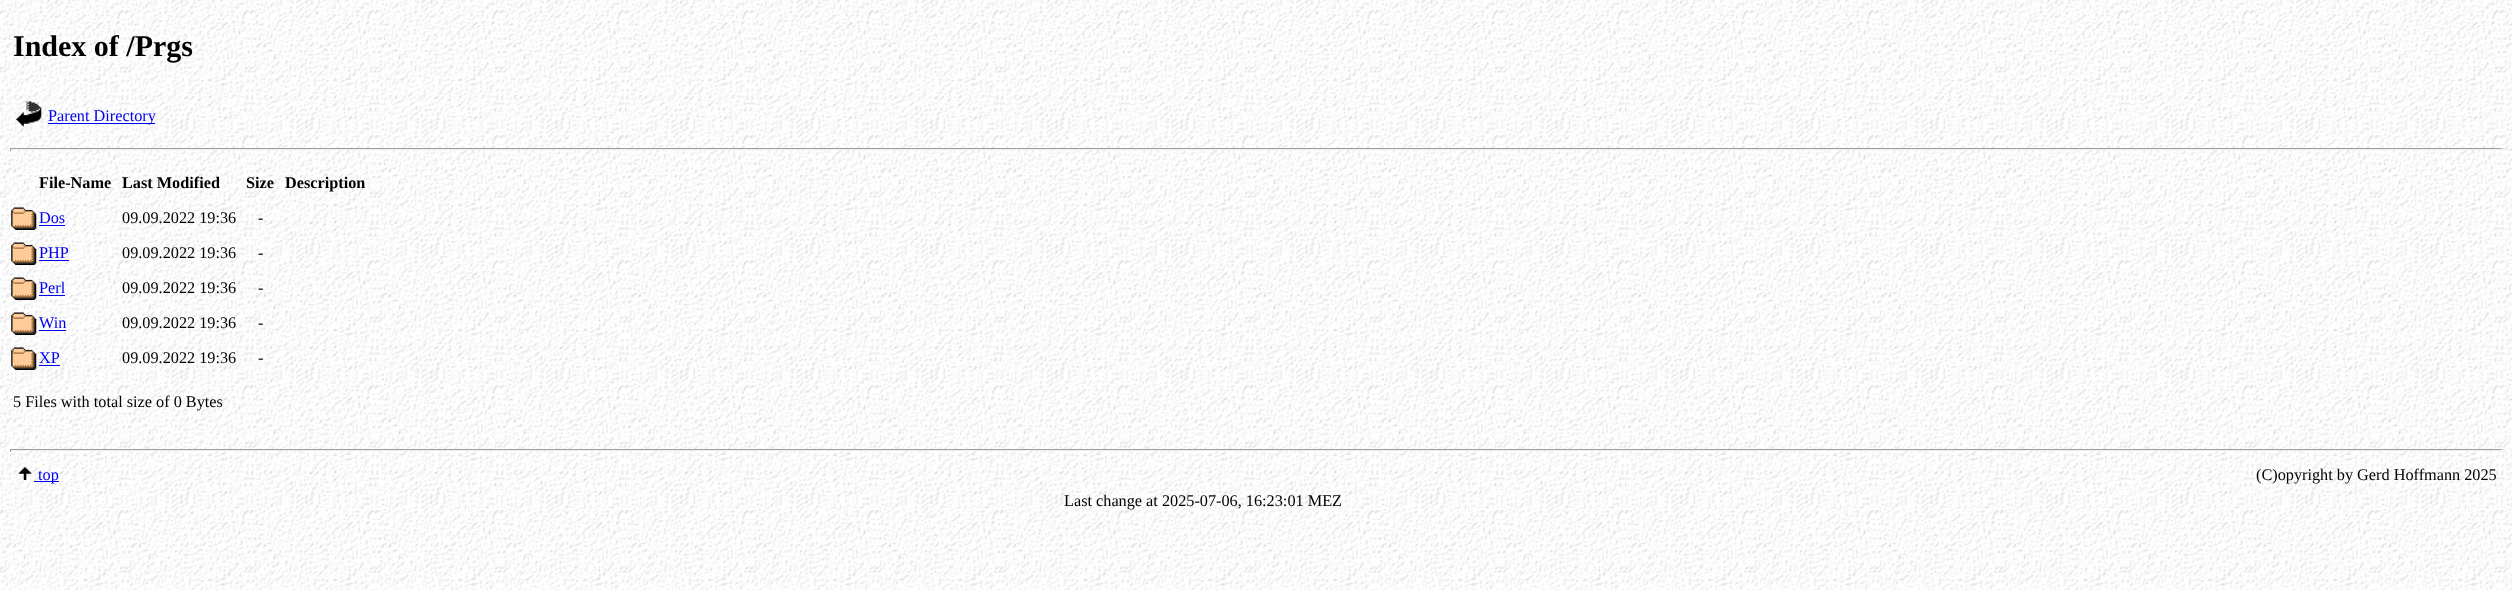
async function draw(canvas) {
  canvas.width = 2512;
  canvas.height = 590;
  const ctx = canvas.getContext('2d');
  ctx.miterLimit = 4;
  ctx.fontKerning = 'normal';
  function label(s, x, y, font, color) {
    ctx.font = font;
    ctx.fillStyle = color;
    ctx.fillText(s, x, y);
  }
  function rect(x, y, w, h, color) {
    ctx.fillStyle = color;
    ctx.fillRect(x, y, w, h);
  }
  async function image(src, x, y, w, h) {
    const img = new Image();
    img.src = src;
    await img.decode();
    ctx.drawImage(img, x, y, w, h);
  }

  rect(0, 0, 2512, 590, '#fff');
  await image('assets/img1.png', 0, 0, 2512, 590);
  label('Index of /Prgs', 13, 56, 'bold 30px Liberation Serif', '#000');
  await image('assets/img2.png', 16, 101, 26, 26);
  rect(48, 123, 107, 1, '#00e');
  label('Parent Directory', 48, 121, '16.25px Liberation Serif', '#00e');
  rect(10, 148, 2493, 1, '#9f9f9f');
  rect(2501, 148, 1, 3, '#eee');
  rect(10, 149, 2493, 1, '#eee');
  rect(10, 148, 1, 3, '#9f9f9f');
  label('File-Name', 39, 188, 'bold 16.25px Liberation Serif', '#000');
  label('Last Modified', 122, 188, 'bold 16.25px Liberation Serif', '#000');
  label('Size', 246, 188, 'bold 16.25px Liberation Serif', '#000');
  label('Description', 285, 188, 'bold 16.25px Liberation Serif', '#000');
  await image('assets/img3.png', 11, 207, 26, 23);
  label('Dos', 39, 223, '16.25px Liberation Serif', '#00e');
  rect(39, 225, 26, 1, '#00e');
  label('09.09.2022 19:36', 122, 223, '16.25px Liberation Serif', '#000');
  label('-', 258, 223, '16.25px Liberation Serif', '#000');
  await image('assets/img4.png', 11, 242, 26, 23);
  label('PHP', 39, 258, '16.25px Liberation Serif', '#00e');
  rect(39, 260, 30, 1, '#00e');
  label('09.09.2022 19:36', 122, 258, '16.25px Liberation Serif', '#000');
  label('-', 258, 258, '16.25px Liberation Serif', '#000');
  await image('assets/img5.png', 11, 277, 26, 23);
  label('Perl', 39, 293, '16.25px Liberation Serif', '#00e');
  rect(39, 295, 26, 1, '#00e');
  label('09.09.2022 19:36', 122, 293, '16.25px Liberation Serif', '#000');
  label('-', 258, 293, '16.25px Liberation Serif', '#000');
  await image('assets/img6.png', 11, 312, 26, 23);
  label('Win', 39, 328, '16.25px Liberation Serif', '#00e');
  rect(39, 330, 27, 1, '#00e');
  label('09.09.2022 19:36', 122, 328, '16.25px Liberation Serif', '#000');
  label('-', 258, 328, '16.25px Liberation Serif', '#000');
  await image('assets/img7.png', 11, 347, 26, 23);
  label('XP', 39, 363, '16.25px Liberation Serif', '#00e');
  rect(39, 365, 21, 1, '#00e');
  label('09.09.2022 19:36', 122, 363, '16.25px Liberation Serif', '#000');
  label('-', 258, 363, '16.25px Liberation Serif', '#000');
  label('5 Files with total size of 0 Bytes', 13, 407, '16.25px Liberation Serif', '#000');
  rect(10, 449, 2493, 1, '#9f9f9f');
  rect(2501, 449, 1, 3, '#eee');
  rect(10, 450, 2493, 1, '#eee');
  rect(10, 449, 1, 3, '#9f9f9f');
  await image('assets/img8.png', 18, 467, 14, 13);
  rect(34, 481, 25, 1, '#00e');
  label('top', 38, 480, '16.25px Liberation Serif', '#00e');
  label('(C)opyright by Gerd Hoffmann 2025', 2256, 480, '16.25px Liberation Serif', '#000');
  label('Last change at 2025-07-06, 16:23:01 MEZ', 1064, 506, '16.25px Liberation Serif', '#000');
}

draw(document.querySelector('canvas'));
